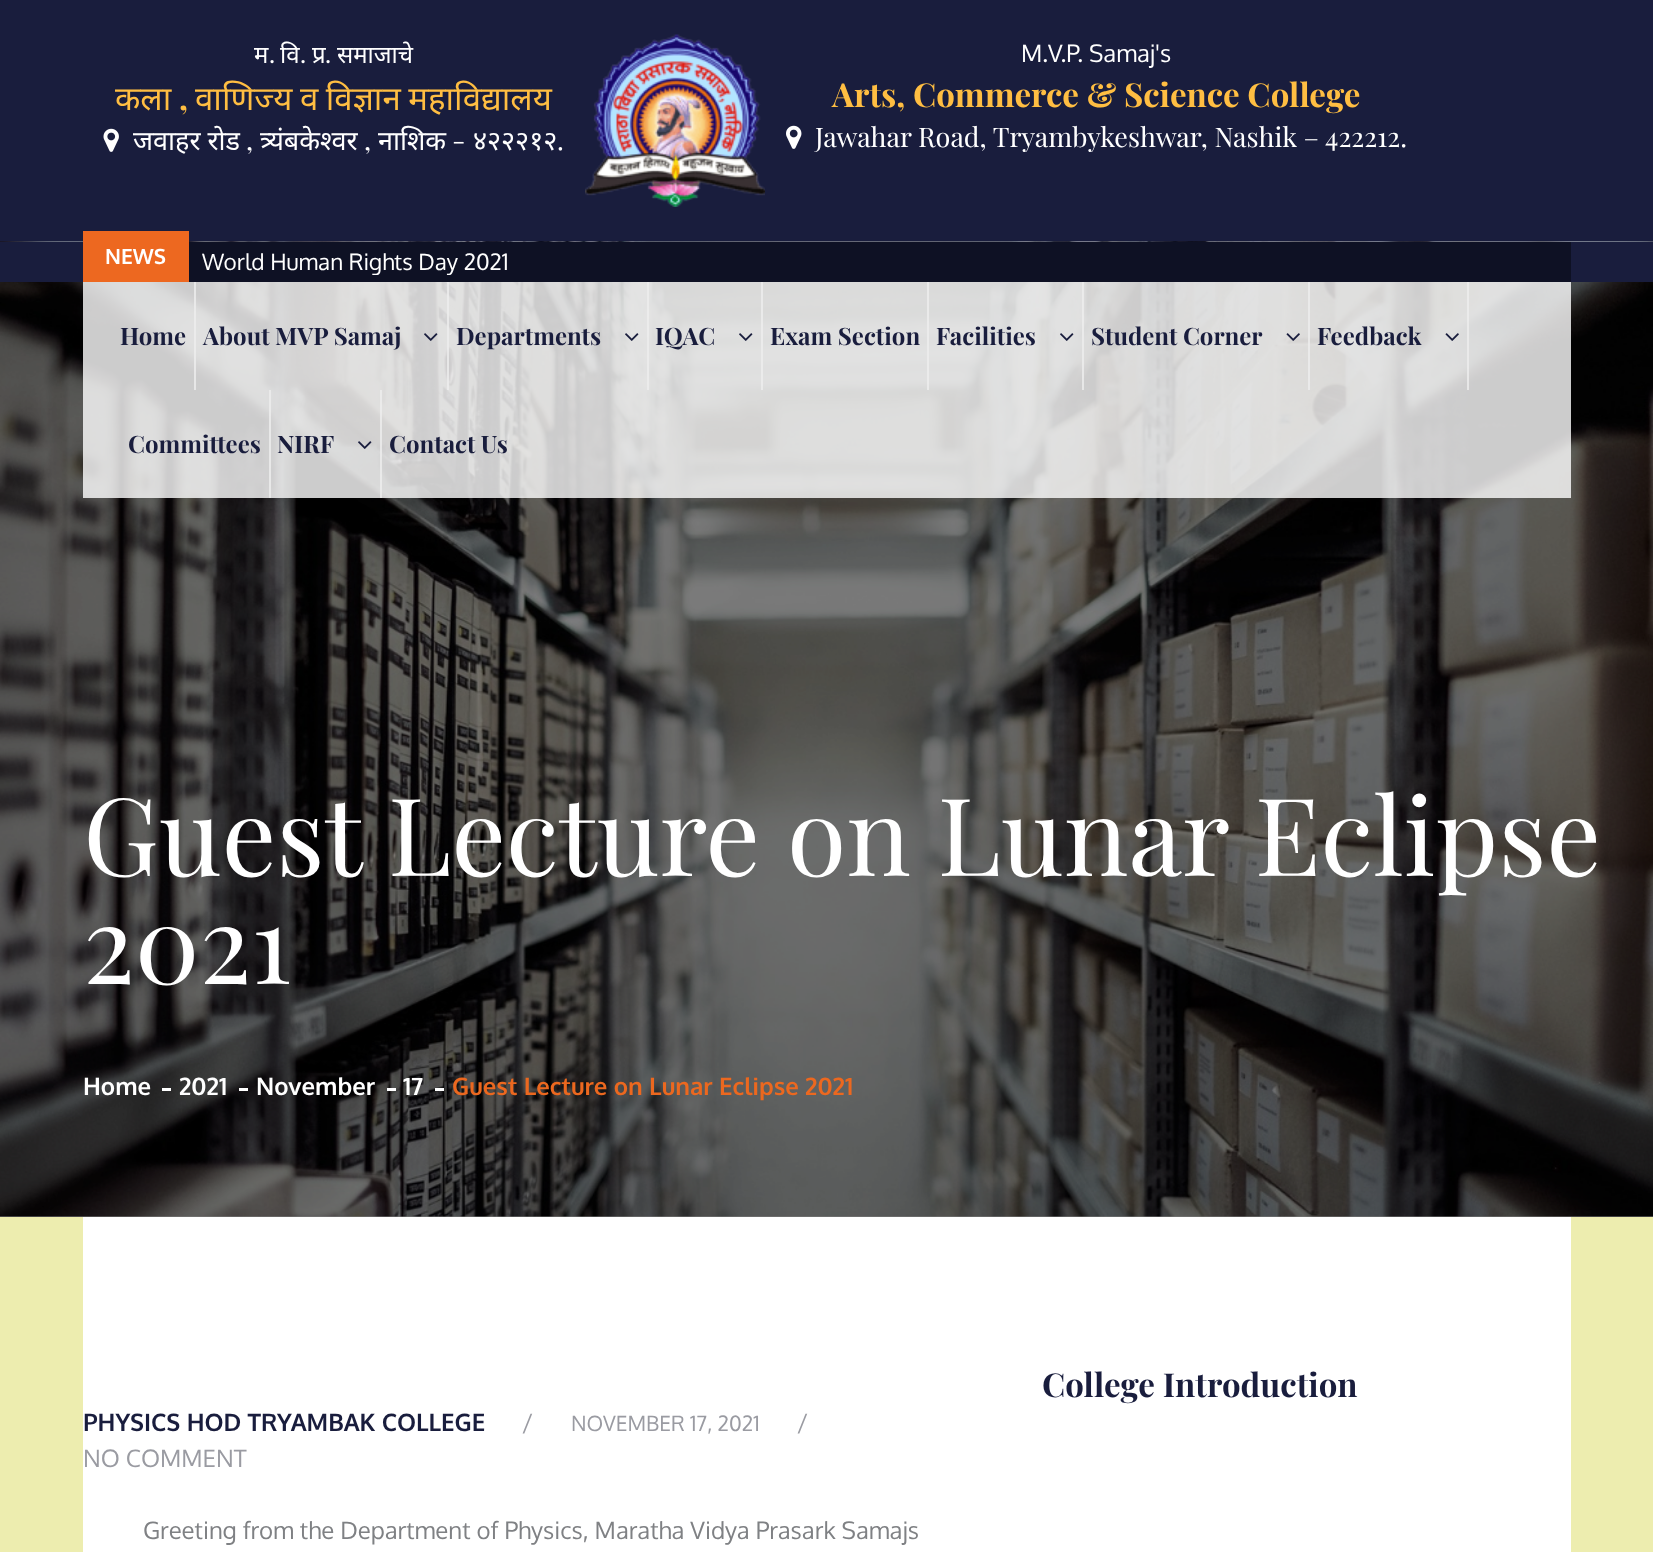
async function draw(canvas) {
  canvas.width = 1653;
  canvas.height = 1552;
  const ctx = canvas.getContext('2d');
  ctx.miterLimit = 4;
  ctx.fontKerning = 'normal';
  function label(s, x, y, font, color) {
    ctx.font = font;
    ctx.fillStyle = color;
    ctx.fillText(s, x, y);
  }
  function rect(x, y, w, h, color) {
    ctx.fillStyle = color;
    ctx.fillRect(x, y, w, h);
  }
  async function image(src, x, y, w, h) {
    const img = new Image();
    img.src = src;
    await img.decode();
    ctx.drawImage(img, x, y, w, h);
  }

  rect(0, 0, 1653, 1552, '#ededaf');
  rect(0, 0, 1653, 242, '#191d3d');
  label('म', 254, 63, '24px Noto Sans', '#fff');
  label('.', 269, 63, '24px Oxygen', '#fff');
  label('वि', 280, 63, '24px Noto Sans', '#fff');
  label('.', 300, 63, '24px Oxygen', '#fff');
  label('प्र', 312, 63, '24px Noto Sans', '#fff');
  label('.', 325, 63, '24px Oxygen', '#fff');
  label('समाजाचे', 337, 63, '24px Noto Sans', '#fff');
  label('कला', 115, 110, '33px Noto Sans', '#ffbe42');
  label(',', 179, 110, 'bold 33px Playfair Display', '#ffbe42');
  ctx.wordSpacing = '-1px';
  label('वाणिज्य व विज्ञान महाविद्यालय', 195, 110, '33px Noto Sans', '#ffbe42');
  await image('assets/img1.png', 103, 128, 16, 24);
  ctx.wordSpacing = '0px';
  label('जवाहर रोड', 133, 150, '27px Noto Sans', '#fff');
  label('त्र्यंबकेश्वर', 260, 150, '27px Noto Sans', '#fff');
  label('नाशिक', 378, 150, '27px Noto Sans', '#fff');
  label('-', 452, 150, '27px Playfair Display', '#fff');
  label('४२२२१२', 473, 150, '27px Noto Sans', '#fff');
  label(',', 246, 150, '27px Playfair Display', '#fff');
  label(',', 364, 150, '27px Playfair Display', '#fff');
  label('.', 557, 150, '27px Playfair Display', '#fff');
  await image('assets/img2.png', 585, 34, 180, 173);
  label('M.V.P. Samaj\'s', 1021, 62, '24px Oxygen', '#fff');
  label('Arts, Commerce & Science College', 832, 107, 'bold 33px Playfair Display', '#ffbe42');
  await image('assets/img3.png', 786, 125, 16, 24);
  label('Jawahar Road, Tryambykeshwar, Nashik – 422212.', 815, 147, '27px Playfair Display', '#fff');
  rect(0, 1216, 1653, 1, '#808080');
  await image('assets/img11.png', 0, 241, 1653, 976);
  rect(0, 242, 1653, 40, '#191d3d');
  rect(189, 242, 1382, 40, '#0e1124');
  rect(83, 231, 106, 51, '#ed6820');
  label('NEWS', 105, 264, 'bold 21px Oxygen', '#fff');
  ctx.save();
  ctx.beginPath();
  ctx.rect(201, 249, 1017, 26);
  ctx.clip();
  label('World Human Rights Day 2021', 202, 270, '22.5px Oxygen', '#fff');
  ctx.restore();
  rect(83, 282, 1488, 216, '#ffffffcc');
  rect(194, 282, 2, 108, '#eeeeeecc');
  label('Home', 120, 345, 'bold 24px Playfair Display', '#191d3d');
  rect(447, 282, 2, 108, '#eeeeeecc');
  label('About MVP Samaj', 203, 345, 'bold 24px Playfair Display', '#191d3d');
  await image('assets/img4.png', 424, 333, 14, 8);
  rect(647, 282, 2, 108, '#eeeeeecc');
  label('Departments', 456, 345, 'bold 24px Playfair Display', '#191d3d');
  await image('assets/img5.png', 625, 333, 14, 8);
  rect(761, 282, 2, 108, '#eeeeeecc');
  label('IQAC', 655, 345, 'bold 24px Playfair Display', '#191d3d');
  await image('assets/img6.png', 739, 333, 14, 8);
  rect(927, 282, 2, 108, '#eeeeeecc');
  label('Exam Section', 770, 345, 'bold 24px Playfair Display', '#191d3d');
  rect(1082, 282, 2, 108, '#eeeeeecc');
  label('Facilities', 936, 345, 'bold 24px Playfair Display', '#191d3d');
  await image('assets/img7.png', 1060, 333, 14, 8);
  rect(1308, 282, 2, 108, '#eeeeeecc');
  label('Student Corner', 1091, 345, 'bold 24px Playfair Display', '#191d3d');
  await image('assets/img8.png', 1286, 333, 14, 8);
  rect(1467, 282, 2, 108, '#eeeeeecc');
  label('Feedback', 1317, 345, 'bold 24px Playfair Display', '#191d3d');
  await image('assets/img9.png', 1445, 333, 14, 8);
  rect(269, 390, 2, 108, '#eeeeeecc');
  label('Committees', 128, 453, 'bold 24px Playfair Display', '#191d3d');
  rect(380, 390, 2, 108, '#eeeeeecc');
  label('NIRF', 277, 453, 'bold 24px Playfair Display', '#191d3d');
  await image('assets/img10.png', 358, 441, 14, 8);
  label('Contact Us', 389, 453, 'bold 24px Playfair Display', '#191d3d');
  label('Guest Lecture on Lunar Eclipse', 83, 876, '108px Playfair Display', '#fff');
  label('2021', 83, 984, '108px Playfair Display', '#fff');
  label('Home', 83, 1095, 'bold 24px Oxygen', '#fff');
  rect(162, 1088, 9, 3, '#fff');
  label('2021', 179, 1095, 'bold 24px Oxygen', '#fff');
  rect(239, 1088, 9, 3, '#fff');
  label('November', 256, 1095, 'bold 24px Oxygen', '#fff');
  rect(387, 1088, 9, 3, '#fff');
  label('17', 403, 1095, 'bold 24px Oxygen', '#fff');
  rect(435, 1088, 9, 3, '#fff');
  label('Guest Lecture on Lunar Eclipse 2021', 452, 1095, 'bold 24px Oxygen', '#ec681f');
  rect(83, 1217, 1488, 335, '#fff');
  label('College Introduction', 1042, 1397, 'bold 33px Playfair Display', '#191d3d');
  label('PHYSICS HOD TRYAMBAK COLLEGE', 83, 1431, 'bold 24px Oxygen', '#191d3d');
  label('/', 522, 1431, '24px Oxygen', '#9a9ba2');
  label('NOVEMBER 17, 2021', 571, 1431, '21px Oxygen', '#9a9ba2');
  label('/', 797, 1431, '24px Oxygen', '#9a9ba2');
  label('NO COMMENT', 83, 1467, '24px Oxygen', '#9a9ba2');
  label('Greeting from the Department of Physics, Maratha Vidya Prasark Samajs', 143, 1539, '24px Oxygen', '#7f8184');
}

draw(document.querySelector('canvas'));
